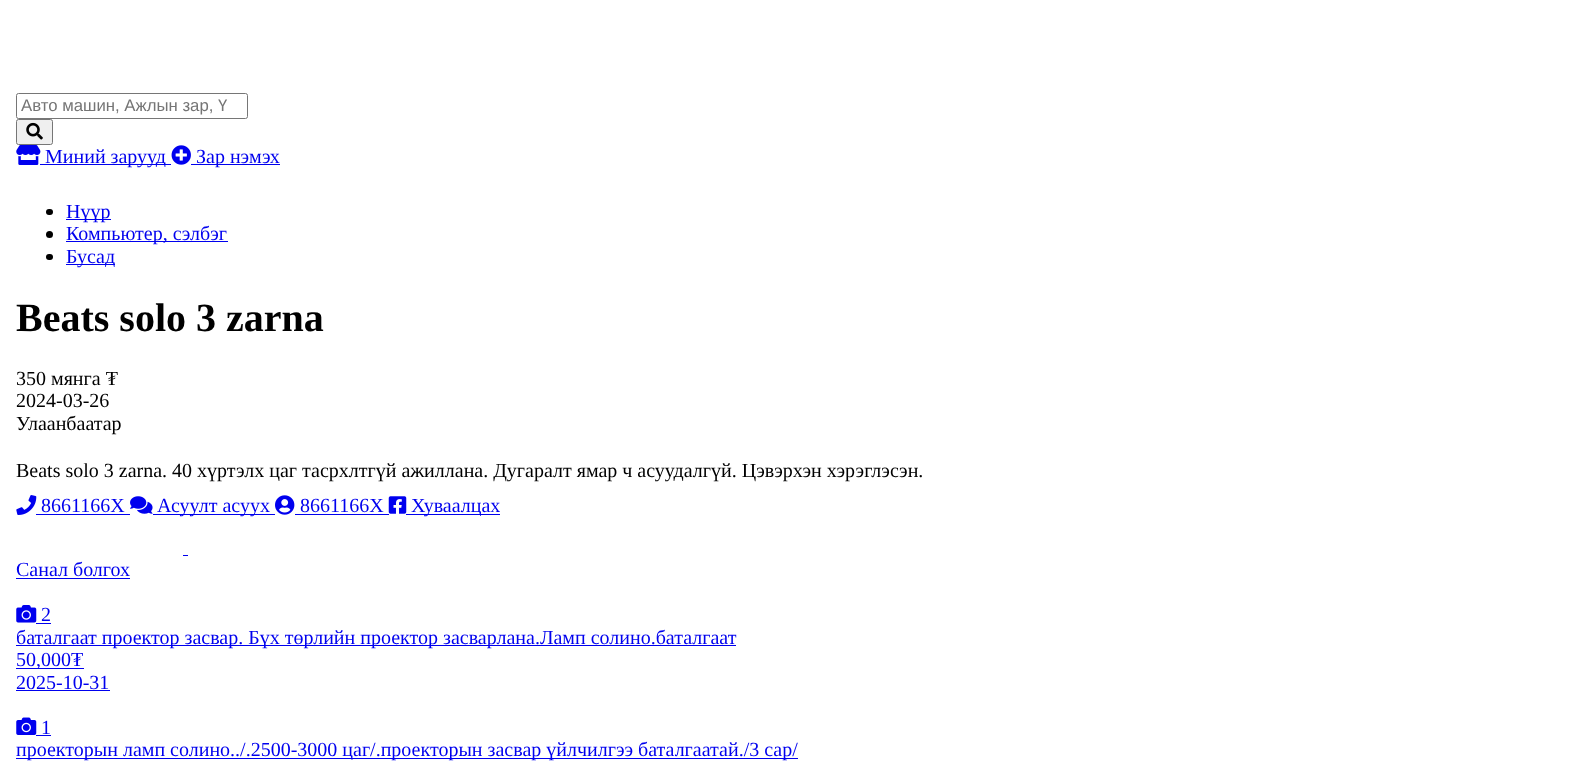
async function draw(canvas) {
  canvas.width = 1579;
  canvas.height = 761;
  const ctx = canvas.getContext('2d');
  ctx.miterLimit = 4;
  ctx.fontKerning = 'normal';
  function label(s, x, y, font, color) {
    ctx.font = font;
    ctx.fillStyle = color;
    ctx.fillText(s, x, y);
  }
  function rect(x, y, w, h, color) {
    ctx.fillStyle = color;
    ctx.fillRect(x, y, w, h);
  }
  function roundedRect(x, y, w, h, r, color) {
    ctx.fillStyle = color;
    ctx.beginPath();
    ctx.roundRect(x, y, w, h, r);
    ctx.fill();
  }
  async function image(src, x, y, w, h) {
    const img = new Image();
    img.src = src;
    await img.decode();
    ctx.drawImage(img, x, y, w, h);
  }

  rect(0, 0, 1579, 761, '#fff');
  ctx.beginPath();
  ctx.roundRect(16.5, 93.5, 231, 25, 2);
  ctx.strokeStyle = '#767676';
  ctx.stroke();
  label('Авто машин, Ажлын зар, Ү', 21, 111, '16.75px Liberation Sans', '#757575');
  ctx.fillStyle = '#efefef';
  ctx.beginPath();
  ctx.roundRect(16.5, 119.5, 36, 25, 2);
  ctx.fill();
  ctx.stroke();
  await image('assets/img1.png', 26, 122, 17, 18);
  await image('assets/img2.png', 16, 145, 25, 20);
  rect(40, 164, 131, 1, '#00e');
  label('Миний зарууд', 45, 163, '20px Liberation Serif', '#00e');
  await image('assets/img3.png', 171, 145, 20, 20);
  rect(191, 164, 89, 1, '#00e');
  label('Зар нэмэх', 196, 163, '20px Liberation Serif', '#00e');
  roundedRect(46, 209, 7, 6, 3, '#000');
  rect(66, 219, 45, 1, '#00e');
  label('Нүүр', 66, 218, '20px Liberation Serif', '#00e');
  ctx.fillStyle = '#000';
  ctx.beginPath();
  ctx.arc(49.5, 234.5, 3.5, 0, 2 * Math.PI);
  ctx.fill();
  rect(66, 241, 162, 1, '#00e');
  label('Компьютер, сэлбэг', 66, 240, '20px Liberation Serif', '#00e');
  roundedRect(46, 254, 7, 6, 3, '#000');
  rect(66, 264, 49, 1, '#00e');
  label('Бусад', 66, 263, '20px Liberation Serif', '#00e');
  label('Beats solo 3 zarna', 16, 331, 'bold 40px Liberation Serif', '#000');
  label('350 мянга ₮', 16, 385, '20px Liberation Serif', '#000');
  label('2024-03-26', 16, 407, '20px Liberation Serif', '#000');
  label('Улаанбаатар', 16, 430, '20px Liberation Serif', '#000');
  label('Beats solo 3 zarna. 40 хүртэлх цаг тасрхлтгүй ажиллана. Дугаралт ямар ч асуудалгүй. Цэвэрхэн хэрэглэсэн.', 16, 477, '20px Liberation Serif', '#000');
  await image('assets/img4.png', 16, 495, 21, 20);
  label('8661166X', 41, 512, '20px Liberation Serif', '#00e');
  rect(36, 514, 94, 1, '#00e');
  await image('assets/img5.png', 130, 496, 23, 18);
  rect(153, 514, 117, 1, '#00e');
  label('Асуулт асуух', 157, 512, '20px Liberation Serif', '#00e');
  rect(270, 514, 5, 1, '#00e');
  await image('assets/img6.png', 275, 495, 20, 20);
  label('8661166X', 300, 512, '20px Liberation Serif', '#00e');
  rect(295, 514, 94, 1, '#00e');
  await image('assets/img7.png', 388, 496, 19, 18);
  rect(406, 514, 94, 1, '#00e');
  label('Хуваалцах', 411, 512, '20px Liberation Serif', '#00e');
  rect(183, 555, 5, 1, '#00e');
  label('Санал болгох', 16, 576, '20px Liberation Serif', '#00e');
  rect(16, 578, 114, 1, '#00e');
  await image('assets/img8.png', 16, 605, 21, 18);
  label('2', 41, 621, '20px Liberation Serif', '#00e');
  rect(36, 623, 15, 1, '#00e');
  rect(16, 645, 720, 1, '#00e');
  label('баталгаат проектор засвар. Бүх төрлийн проектор засварлана.Ламп солино.баталгаат', 16, 644, '20px Liberation Serif', '#00e');
  rect(16, 668, 68, 1, '#00e');
  label('50,000₮', 16, 666, '20px Liberation Serif', '#00e');
  label('2025-10-31', 16, 689, '20px Liberation Serif', '#00e');
  rect(16, 690, 94, 1, '#00e');
  await image('assets/img9.png', 16, 717, 21, 18);
  label('1', 41, 734, '20px Liberation Serif', '#00e');
  rect(36, 735, 15, 1, '#00e');
  rect(16, 758, 782, 1, '#00e');
  label('проекторын ламп солино../.2500-3000 цаг/.проекторын засвар үйлчилгээ баталгаатай./3 сар/', 16, 756, '20px Liberation Serif', '#00e');
}

draw(document.querySelector('canvas'));
